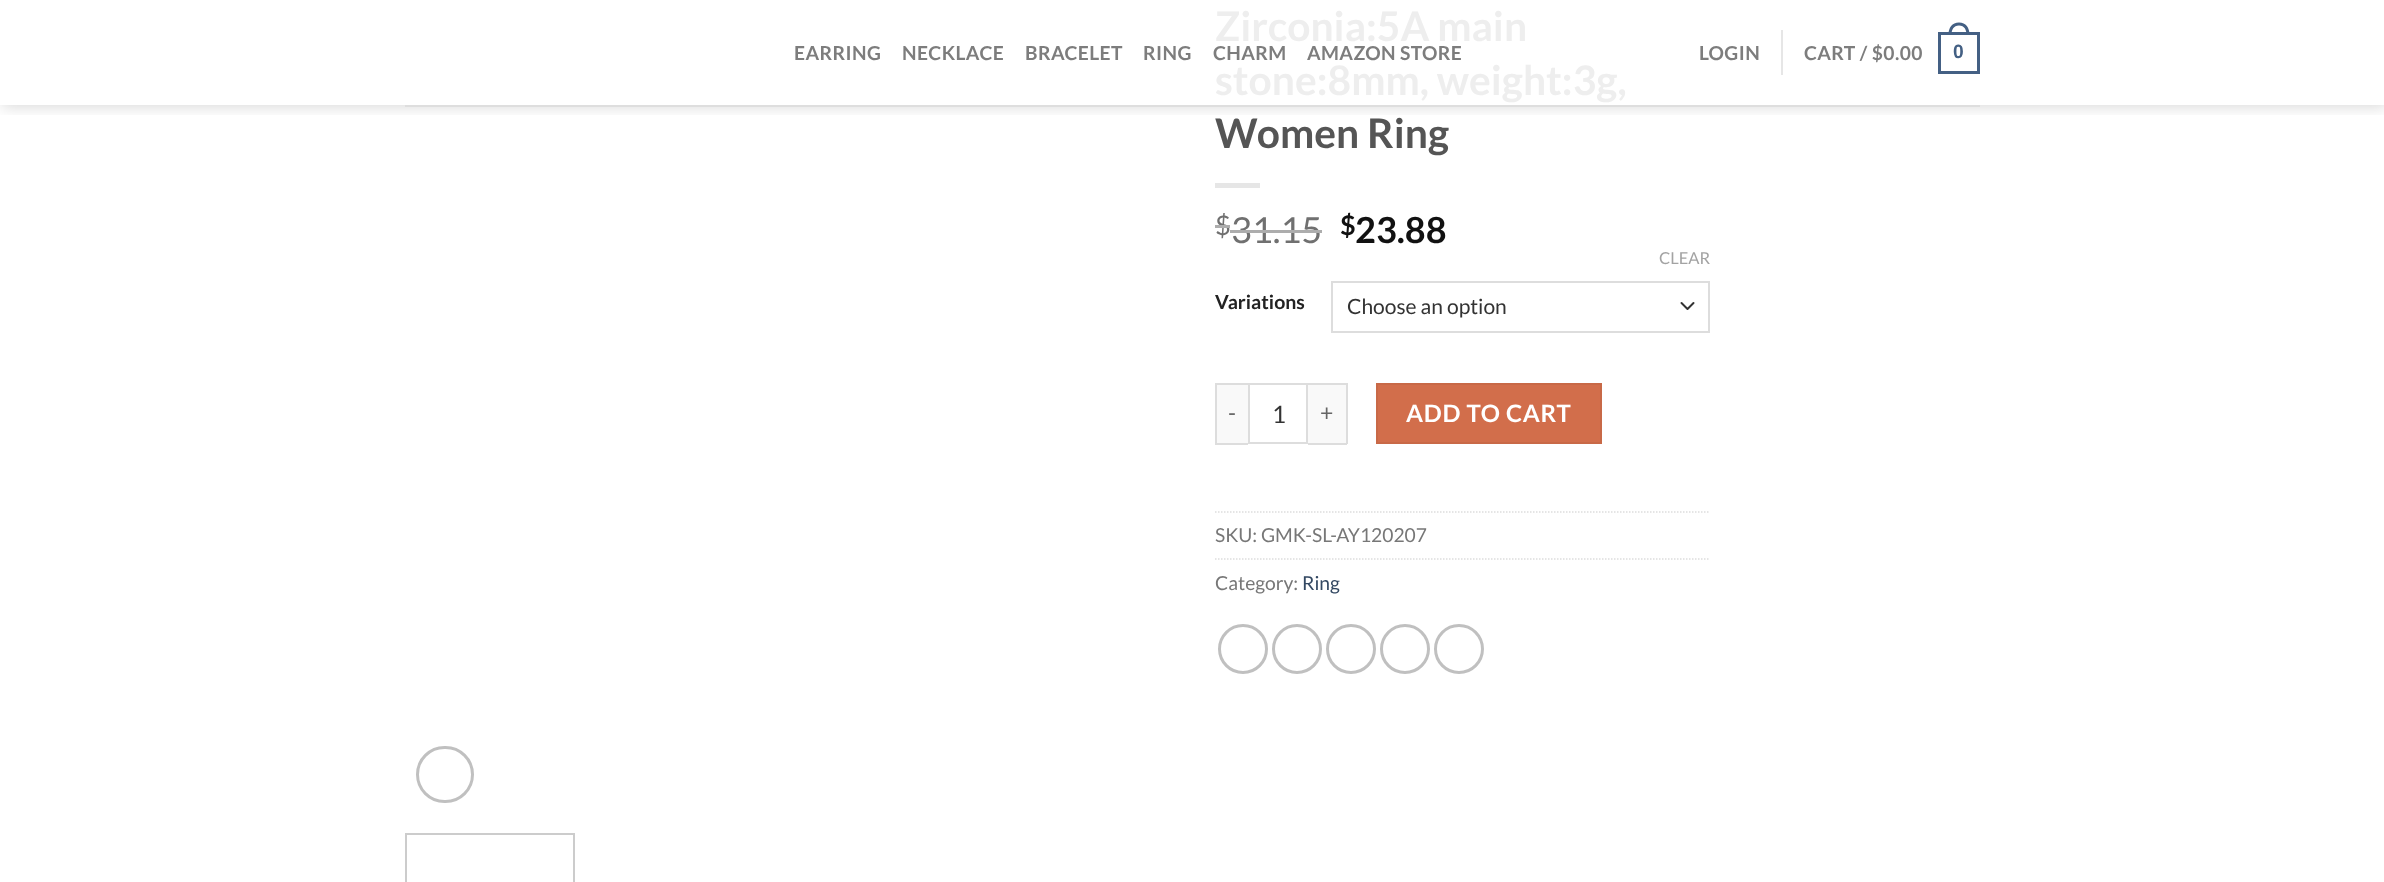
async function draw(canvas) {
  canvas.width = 2384;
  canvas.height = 882;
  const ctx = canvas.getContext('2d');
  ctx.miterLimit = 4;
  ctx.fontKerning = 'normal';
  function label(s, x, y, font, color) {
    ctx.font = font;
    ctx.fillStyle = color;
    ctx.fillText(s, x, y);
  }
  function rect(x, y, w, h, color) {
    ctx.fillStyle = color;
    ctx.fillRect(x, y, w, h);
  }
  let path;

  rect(0, 0, 2384, 882, '#fff');
  label('Zirconia:5A main', 1215, 41, 'bold 40.75px Lato', '#eee');
  label('stone:8mm, weight:3g,', 1215, 95, 'bold 40.75px Lato', '#eee');
  label('Women Ring', 1215, 148, 'bold 40.75px Lato', '#555');
  rect(1215, 183, 45, 5, '#e6e6e6');
  label('$', 1215, 235, '27px Lato', '#707070');
  rect(1215, 225, 15, 3, '#adadad');
  label('31.15', 1231, 243, '36px Lato', '#707070');
  rect(1230, 230, 92, 3, '#adadad');
  label('$', 1340, 235, 'bold 27px Lato', '#111');
  label('23.88', 1355, 243, 'bold 36px Lato', '#111');
  label('Variations', 1215, 309, 'bold 19.5px Lato', '#222');
  label('CLEAR', 1659, 264, '16.5px Lato', '#a3a3a3');
  path = new Path2D('M1681.5 303L1687.5 309L1693.5 303');
  ctx.strokeStyle = '#333';
  ctx.lineWidth = 2;
  ctx.lineCap = 'round';
  ctx.lineJoin = 'round';
  ctx.stroke(path);
  ctx.strokeStyle = '#ddd';
  ctx.lineJoin = 'miter';
  ctx.strokeRect(1332, 282, 377, 50);
  label('Choose an option', 1347, 314, '21px Lato', '#333');
  rect(1217, 385, 31, 58, '#f9f9f9');
  rect(1215, 383, 33, 2, '#ddd');
  rect(1215, 443, 33, 2, '#ddd');
  rect(1215, 383, 2, 61, '#ddd');
  ctx.letterSpacing = '1px';
  label('-', 1228, 421, '23px Lato', '#666');
  ctx.strokeRect(1249, 384, 58, 59);
  ctx.letterSpacing = '0px';
  label('1', 1272, 423, '24px Lato', '#333');
  rect(1308, 385, 38, 58, '#f9f9f9');
  rect(1308, 383, 39, 2, '#ddd');
  rect(1346, 383, 2, 61, '#ddd');
  rect(1308, 443, 39, 2, '#ddd');
  ctx.letterSpacing = '1px';
  label('+', 1320, 421, '23px Lato', '#666');
  ctx.fillStyle = '#d26e4b';
  ctx.beginPath();
  ctx.rect(1377, 384, 224, 59);
  ctx.fill();
  ctx.strokeStyle = '#c86947';
  ctx.stroke();
  ctx.letterSpacing = '0.75px';
  label('ADD TO CART', 1406, 422, 'bold 24px Lato', '#fff');
  path = new Path2D('M1215 512H1710');
  ctx.strokeStyle = '#ddd';
  ctx.lineWidth = 1.5;
  ctx.lineCap = 'butt';
  ctx.setLineDash([1.5, 1.5]);
  ctx.stroke(path);
  ctx.letterSpacing = '0px';
  label('SKU: GMK-SL-AY120207', 1215, 542, '19.25px Lato', '#777');
  path = new Path2D('M1215 559H1710');
  ctx.stroke(path);
  label('Category:', 1215, 590, '19.25px Lato', '#777');
  label('Ring', 1302, 590, '19.25px Lato', '#334862');
  ctx.beginPath();
  ctx.arc(1243, 649, 23.5, 0, 2 * Math.PI);
  ctx.strokeStyle = '#c0c0c0';
  ctx.lineWidth = 3;
  ctx.setLineDash([]);
  ctx.stroke();
  ctx.beginPath();
  ctx.arc(1297, 649, 23.5, 0, 2 * Math.PI);
  ctx.stroke();
  ctx.beginPath();
  ctx.arc(1351, 649, 23.5, 0, 2 * Math.PI);
  ctx.stroke();
  ctx.beginPath();
  ctx.arc(1405, 649, 23.5, 0, 2 * Math.PI);
  ctx.stroke();
  ctx.beginPath();
  ctx.arc(1459, 649, 23.5, 0, 2 * Math.PI);
  ctx.stroke();
  ctx.beginPath();
  ctx.roundRect(417.5, 747.5, 55, 54, 27);
  ctx.stroke();
  ctx.strokeStyle = '#ccc';
  ctx.lineWidth = 2;
  ctx.strokeRect(406, 834, 168, 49);
  ctx.save();
  ctx.beginPath();
  ctx.rect(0, 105, 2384, 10);
  ctx.clip();
  ctx.fillStyle = '#00000026';
  ctx.filter = 'blur(7.5px)';
  ctx.beginPath();
  ctx.rect(2, 2, 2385, 105);
  ctx.fill();
  ctx.filter = 'none';
  ctx.restore();
  ctx.letterSpacing = '0.4px';
  label('EARRING', 794, 60, 'bold 19.25px Lato', '#7d7d7d');
  label('NECKLACE', 902, 60, 'bold 19.25px Lato', '#7d7d7d');
  label('BRACELET', 1025, 60, 'bold 19.25px Lato', '#7d7d7d');
  label('RING', 1143, 60, 'bold 19.25px Lato', '#7d7d7d');
  label('CHARM', 1213, 60, 'bold 19.25px Lato', '#7d7d7d');
  label('AMAZON STORE', 1307, 60, 'bold 19.25px Lato', '#7d7d7d');
  label('LOGIN', 1699, 60, 'bold 19.25px Lato', '#7d7d7d');
  rect(1781, 30, 2, 45, '#e6e6e6');
  label('CART / $0.00', 1804, 60, 'bold 19.25px Lato', '#7d7d7d');
  ctx.strokeStyle = '#446084';
  ctx.lineWidth = 3;
  ctx.strokeRect(1939.5, 33.5, 39, 39);
  ctx.fillStyle = '#446084';
  path = new Path2D('M1959 22.5C1966 22.5 1969.5 28 1969.5 34.5H1948.5C1948.5 28 1952 22.5 1959 22.5ZM1959 25.5C1964.5 25.5 1966.5 30 1966.5 34.5H1951.5C1951.5 30 1953.5 25.5 1959 25.5Z');
  ctx.fill(path, 'evenodd');
  label('0', 1953, 58, 'bold 19.25px Liberation Sans', '#446084');
  rect(405, 105, 1575, 2, '#dedede');
}

draw(document.querySelector('canvas'));
